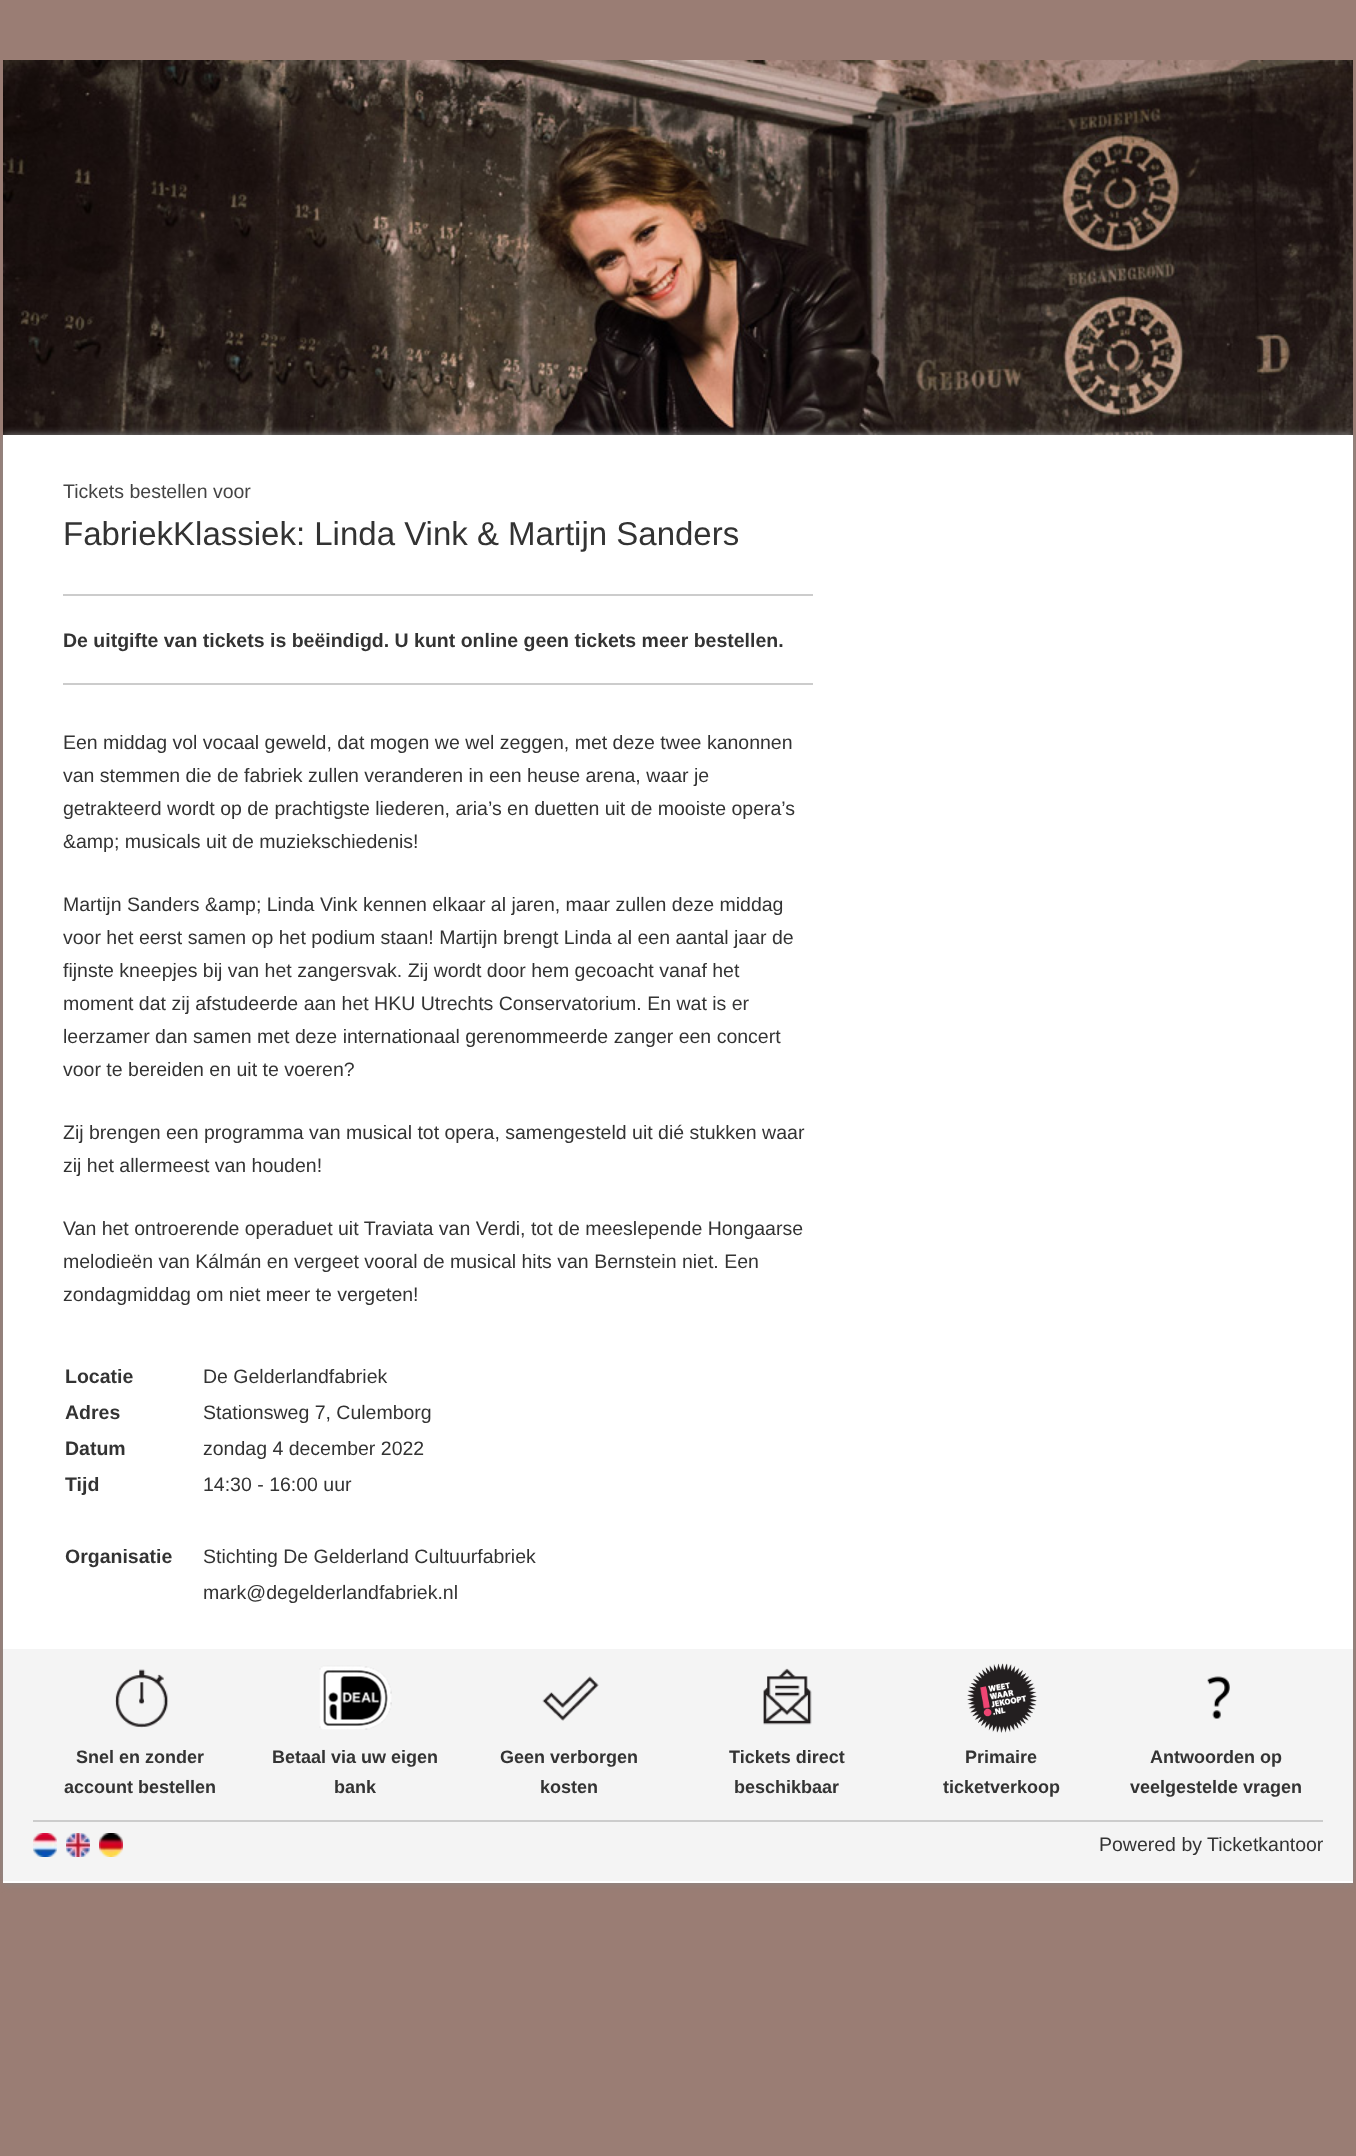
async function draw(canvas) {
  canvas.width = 1356;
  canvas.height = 2156;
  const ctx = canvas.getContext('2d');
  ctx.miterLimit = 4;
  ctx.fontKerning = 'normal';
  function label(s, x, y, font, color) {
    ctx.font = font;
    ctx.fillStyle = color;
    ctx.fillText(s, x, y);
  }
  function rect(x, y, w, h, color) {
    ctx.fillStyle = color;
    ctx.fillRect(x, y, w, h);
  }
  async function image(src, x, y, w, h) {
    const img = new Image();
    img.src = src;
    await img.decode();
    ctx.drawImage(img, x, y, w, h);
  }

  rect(0, 0, 1356, 2156, '#9a7d74');
  await image('assets/img1.png', 3, 60, 1350, 375);
  ctx.fillStyle = '#888';
  ctx.filter = 'blur(4px)';
  ctx.beginPath();
  ctx.rect(3, 435, 1350, 1448);
  ctx.fill();
  ctx.filter = 'none';
  rect(3, 435, 1350, 1448, '#fff');
  label('Tickets bestellen voor', 63, 498, '19.5px Liberation Sans', '#444');
  label('FabriekKlassiek: Linda Vink & Martijn Sanders', 63, 545, '33px Liberation Sans', '#333');
  rect(63, 594, 750, 2, '#ccc');
  rect(63, 683, 750, 2, '#ccc');
  label('De uitgifte van tickets is beëindigd. U kunt online geen tickets meer bestellen.', 63, 647, 'bold 19.5px Liberation Sans', '#333');
  label('Een middag vol vocaal geweld, dat mogen we wel zeggen, met deze twee kanonnen', 63, 749, '19.5px Liberation Sans', '#333');
  label('van stemmen die de fabriek zullen veranderen in een heuse arena, waar je', 63, 782, '19.5px Liberation Sans', '#333');
  label('getrakteerd wordt op de prachtigste liederen, aria’s en duetten uit de mooiste opera’s', 63, 815, '19.5px Liberation Sans', '#333');
  label('&amp; musicals uit de muziekschiedenis!', 63, 848, '19.5px Liberation Sans', '#333');
  label('Martijn Sanders &amp; Linda Vink kennen elkaar al jaren, maar zullen deze middag', 63, 911, '19.5px Liberation Sans', '#333');
  label('voor het eerst samen op het podium staan! Martijn brengt Linda al een aantal jaar de', 63, 944, '19.5px Liberation Sans', '#333');
  label('fijnste kneepjes bij van het zangersvak. Zij wordt door hem gecoacht vanaf het', 63, 977, '19.5px Liberation Sans', '#333');
  label('moment dat zij afstudeerde aan het HKU Utrechts Conservatorium. En wat is er', 63, 1010, '19.5px Liberation Sans', '#333');
  label('leerzamer dan samen met deze internationaal gerenommeerde zanger een concert', 63, 1043, '19.5px Liberation Sans', '#333');
  label('voor te bereiden en uit te voeren?', 63, 1076, '19.5px Liberation Sans', '#333');
  label('Zij brengen een programma van musical tot opera, samengesteld uit dié stukken waar', 63, 1139, '19.5px Liberation Sans', '#333');
  label('zij het allermeest van houden!', 63, 1172, '19.5px Liberation Sans', '#333');
  label('Van het ontroerende operaduet uit Traviata van Verdi, tot de meeslepende Hongaarse', 63, 1235, '19.5px Liberation Sans', '#333');
  label('melodieën van Kálmán en vergeet vooral de musical hits van Bernstein niet. Een', 63, 1268, '19.5px Liberation Sans', '#333');
  label('zondagmiddag om niet meer te vergeten!', 63, 1301, '19.5px Liberation Sans', '#333');
  label('Locatie', 65, 1383, 'bold 19.5px Liberation Sans', '#333');
  label('De Gelderlandfabriek', 203, 1383, '19.5px Liberation Sans', '#333');
  label('Adres', 65, 1419, 'bold 19.5px Liberation Sans', '#333');
  label('Stationsweg 7, Culemborg', 203, 1419, '19.5px Liberation Sans', '#333');
  label('Datum', 65, 1455, 'bold 19.5px Liberation Sans', '#333');
  label('zondag 4 december 2022', 203, 1455, '19.5px Liberation Sans', '#333');
  label('Tijd', 65, 1491, 'bold 19.5px Liberation Sans', '#333');
  label('14:30 - 16:00 uur', 203, 1491, '19.5px Liberation Sans', '#333');
  label('Organisatie', 65, 1563, 'bold 19.5px Liberation Sans', '#333');
  label('Stichting De Gelderland Cultuurfabriek', 203, 1563, '19.5px Liberation Sans', '#333');
  label('mark@degelderlandfabriek.nl', 203, 1599, '19.5px Liberation Sans', '#333');
  rect(3, 1649, 1350, 232, '#f4f4f4');
  await image('assets/img2.png', 115, 1669, 54, 59);
  label('Snel en zonder', 76, 1763, 'bold 18px Liberation Sans', '#333');
  label('account bestellen', 64, 1793, 'bold 18px Liberation Sans', '#333');
  await image('assets/img3.png', 319, 1665, 73, 65);
  label('Betaal via uw eigen', 272, 1763, 'bold 18px Liberation Sans', '#333');
  label('bank', 334, 1793, 'bold 18px Liberation Sans', '#333');
  await image('assets/img4.png', 542, 1676, 57, 45);
  label('Geen verborgen', 500, 1763, 'bold 18px Liberation Sans', '#333');
  label('kosten', 540, 1793, 'bold 18px Liberation Sans', '#333');
  await image('assets/img5.png', 763, 1668, 49, 57);
  label('Tickets direct', 729, 1763, 'bold 18px Liberation Sans', '#333');
  label('beschikbaar', 734, 1793, 'bold 18px Liberation Sans', '#333');
  await image('assets/img6.png', 967, 1663, 70, 70);
  label('Primaire', 965, 1763, 'bold 18px Liberation Sans', '#333');
  label('ticketverkoop', 943, 1793, 'bold 18px Liberation Sans', '#333');
  await image('assets/img7.png', 1207, 1676, 23, 43);
  label('Antwoorden op', 1150, 1763, 'bold 18px Liberation Sans', '#333');
  label('veelgestelde vragen', 1130, 1793, 'bold 18px Liberation Sans', '#333');
  rect(33, 1820, 1290, 2, '#ccc');
  await image('assets/img8.png', 33, 1833, 24, 24);
  await image('assets/img9.png', 66, 1833, 24, 24);
  await image('assets/img10.png', 99, 1833, 24, 24);
  label('Powered by Ticketkantoor', 1099, 1851, '19.5px Liberation Sans', '#333');
}

draw(document.querySelector('canvas'));
